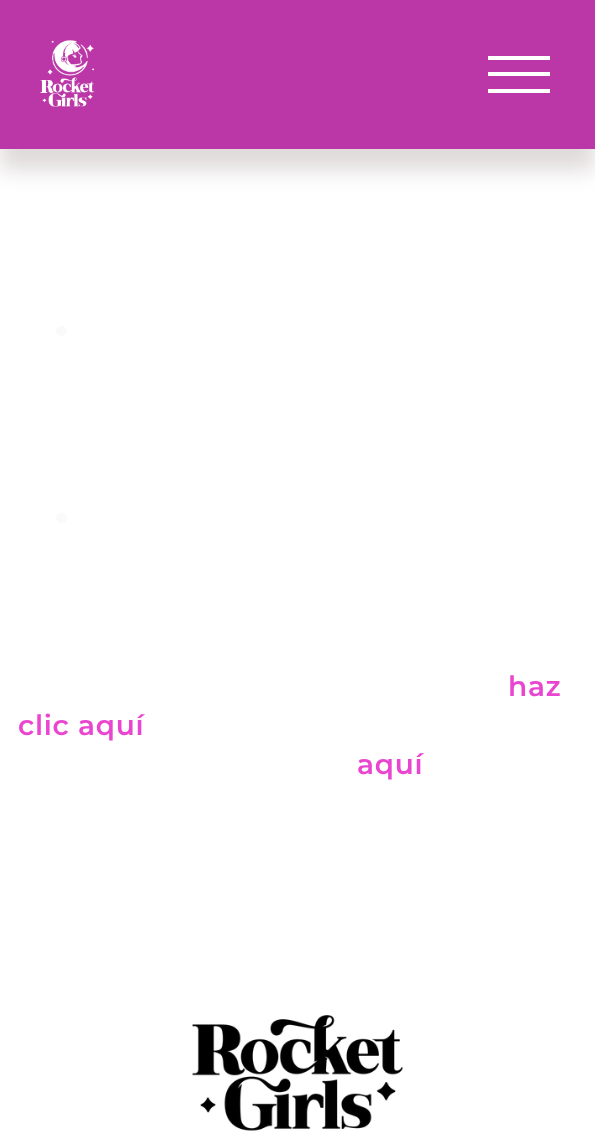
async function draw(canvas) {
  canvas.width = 595;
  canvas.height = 1145;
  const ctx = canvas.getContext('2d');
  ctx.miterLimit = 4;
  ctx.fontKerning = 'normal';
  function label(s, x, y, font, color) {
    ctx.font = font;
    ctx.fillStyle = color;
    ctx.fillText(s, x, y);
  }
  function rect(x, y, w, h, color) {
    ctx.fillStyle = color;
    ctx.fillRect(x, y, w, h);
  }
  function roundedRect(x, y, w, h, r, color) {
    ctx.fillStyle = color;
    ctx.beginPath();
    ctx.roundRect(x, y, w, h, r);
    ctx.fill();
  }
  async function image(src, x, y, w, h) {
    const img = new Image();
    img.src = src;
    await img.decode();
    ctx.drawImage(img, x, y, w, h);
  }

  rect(0, 0, 595, 1145, '#fff');
  ctx.fillStyle = '#20060326';
  ctx.filter = 'blur(10.5px)';
  ctx.beginPath();
  ctx.rect(0, 21, 595, 149);
  ctx.fill();
  ctx.filter = 'none';
  rect(0, 0, 595, 149, '#bb37a7');
  await image('assets/img1.png', 40, 40, 55, 67);
  rect(488, 56, 62, 4, '#fff');
  rect(488, 72, 62, 4, '#fff');
  rect(488, 89, 62, 4, '#fff');
  roundedRect(56, 326, 11, 10, 5, '#fafafa');
  roundedRect(56, 513, 11, 10, 5, '#fafafa');
  ctx.letterSpacing = '0.75px';
  label('haz', 508, 696, '100 28px Montserrat', '#ea45d1');
  label('clic aquí', 18, 735, '100 28px Montserrat', '#ea45d1');
  label('aquí', 357, 774, '100 28px Montserrat', '#ea45d1');
  await image('assets/img2.png', 192, 1015, 211, 116);
}

draw(document.querySelector('canvas'));
